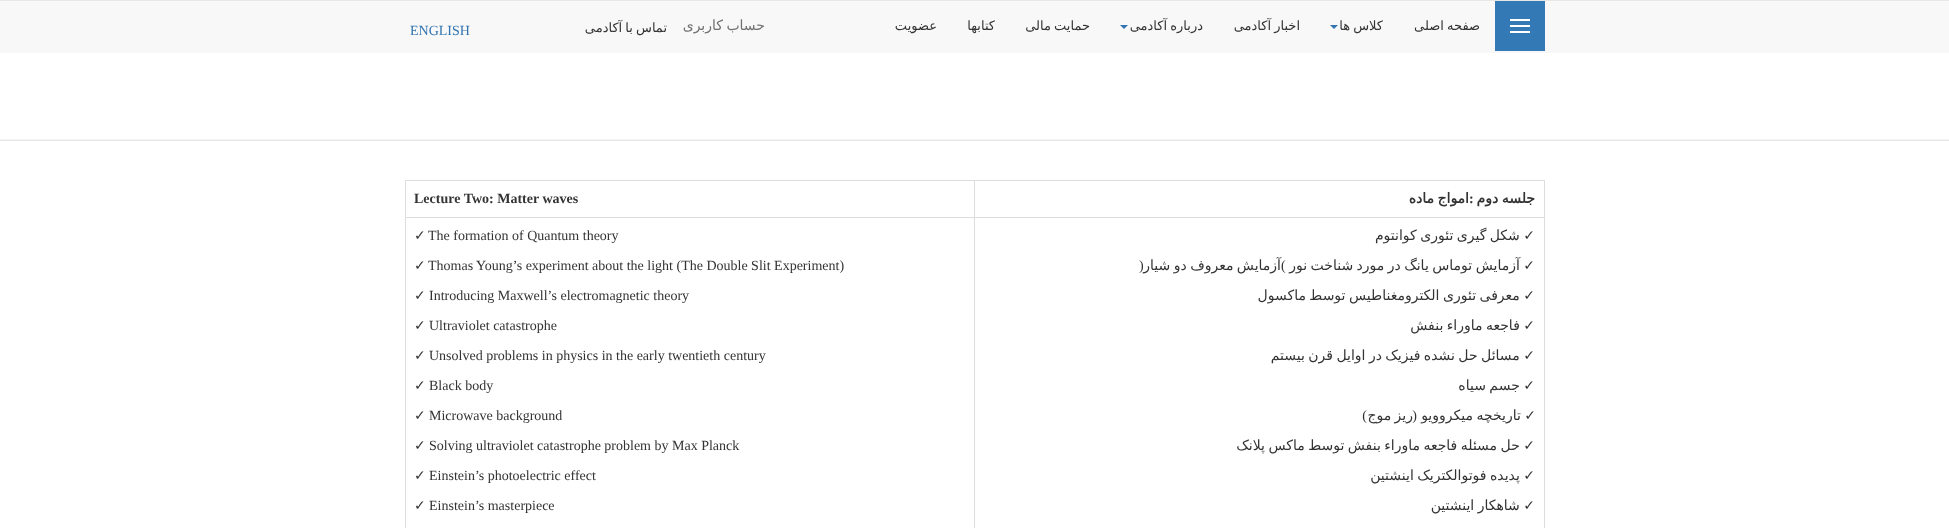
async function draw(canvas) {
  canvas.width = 1949;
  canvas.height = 528;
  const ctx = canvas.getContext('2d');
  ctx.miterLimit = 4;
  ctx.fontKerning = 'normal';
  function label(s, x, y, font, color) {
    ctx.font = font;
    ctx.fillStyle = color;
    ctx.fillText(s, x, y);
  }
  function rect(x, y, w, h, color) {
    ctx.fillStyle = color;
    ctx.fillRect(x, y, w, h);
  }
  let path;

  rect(0, 0, 1949, 528, '#fff');
  rect(0, 1, 1949, 52, '#f8f8f8');
  rect(0, 0, 1949, 1, '#e7e7e7');
  rect(0, 140, 1949, 1, '#e7e7e7');
  label('ENGLISH', 410, 35, '14px Liberation Serif', '#3174af');
  ctx.wordSpacing = '-1px';
  ctx.direction = 'rtl';
  label('تماس با آکادمی', 667, 32, '13px DejaVu Sans', '#333');
  label('حساب کاربری', 765, 30, '14px DejaVu Sans', '#707070');
  ctx.wordSpacing = '0px';
  label('عضویت', 937, 30, '13px DejaVu Sans', '#333');
  label('کتابها', 995, 30, '13px DejaVu Sans', '#333');
  ctx.wordSpacing = '-1px';
  label('حمایت مالی', 1090, 30, '13px DejaVu Sans', '#333');
  ctx.fillStyle = '#3174af';
  path = new Path2D('M1120 25H1128L1124 29Z');
  ctx.fill(path);
  label('درباره آکادمی', 1203, 30, '13px DejaVu Sans', '#333');
  label('اخبار آکادمی', 1300, 30, '13px DejaVu Sans', '#333');
  ctx.fillStyle = '#3174af';
  path = new Path2D('M1330 25H1338L1334 29Z');
  ctx.fill(path);
  label('کلاس ها', 1383, 30, '13px DejaVu Sans', '#333');
  label('صفحه اصلی', 1480, 30, '13px DejaVu Sans', '#333');
  rect(1495, 1, 50, 50, '#3379b5');
  rect(1510, 19, 20, 2, '#fff');
  rect(1510, 25, 20, 2, '#fff');
  rect(1510, 31, 20, 2, '#fff');
  rect(0, 139, 1949, 1, '#f5f5f5');
  rect(405, 180, 1140, 1, '#ddd');
  rect(1544, 180, 1, 348, '#ddd');
  rect(405, 180, 1, 348, '#ddd');
  rect(405, 217, 570, 1, '#ddd');
  rect(974, 217, 1, 311, '#ddd');
  rect(974, 217, 571, 1, '#ddd');
  rect(974, 180, 1, 38, '#ddd');
  ctx.wordSpacing = '0px';
  ctx.direction = 'ltr';
  label('Lecture Two: Matter waves', 414, 203, 'bold 14px Liberation Serif', '#333');
  ctx.wordSpacing = '-1px';
  ctx.direction = 'rtl';
  label('امواج ماده', 1469, 203, 'bold 14px DejaVu Sans', '#333');
  ctx.wordSpacing = '0px';
  ctx.direction = 'ltr';
  label(':', 1469, 203, 'bold 14px Liberation Serif', '#333');
  ctx.wordSpacing = '-1px';
  ctx.direction = 'rtl';
  label('جلسه دوم', 1535, 203, 'bold 14px DejaVu Sans', '#333');
  ctx.wordSpacing = '0px';
  ctx.direction = 'ltr';
  label('✓', 414, 240, '14px DejaVu Sans', '#333');
  label('The formation of Quantum theory', 428, 240, '14px Liberation Serif', '#333');
  label('✓', 414, 270, '14px DejaVu Sans', '#333');
  label('Thomas Young’s experiment about the light (The Double Slit Experiment)', 428, 270, '14px Liberation Serif', '#333');
  label('✓', 414, 300, '14px DejaVu Sans', '#333');
  label('Introducing Maxwell’s electromagnetic theory', 429, 300, '14px Liberation Serif', '#333');
  label('✓', 414, 330, '14px DejaVu Sans', '#333');
  label('Ultraviolet catastrophe', 429, 330, '14px Liberation Serif', '#333');
  label('✓', 414, 360, '14px DejaVu Sans', '#333');
  label('Unsolved problems in physics in the early twentieth century', 429, 360, '14px Liberation Serif', '#333');
  label('✓', 414, 390, '14px DejaVu Sans', '#333');
  label('Black body', 429, 390, '14px Liberation Serif', '#333');
  label('✓', 414, 420, '14px DejaVu Sans', '#333');
  label('Microwave background', 429, 420, '14px Liberation Serif', '#333');
  label('✓', 414, 450, '14px DejaVu Sans', '#333');
  label('Solving ultraviolet catastrophe problem by Max Planck', 429, 450, '14px Liberation Serif', '#333');
  label('✓', 414, 480, '14px DejaVu Sans', '#333');
  label('Einstein’s photoelectric effect', 429, 480, '14px Liberation Serif', '#333');
  label('✓', 414, 510, '14px DejaVu Sans', '#333');
  label('Einstein’s masterpiece', 429, 510, '14px Liberation Serif', '#333');
  ctx.wordSpacing = '-1px';
  ctx.direction = 'rtl';
  label('✓ شکل گیری تئوری کوانتوم', 1535, 240, '14px DejaVu Sans', '#333');
  ctx.wordSpacing = '0px';
  ctx.direction = 'ltr';
  label('(', 1281, 270, '14px Liberation Serif', '#333');
  ctx.wordSpacing = '-1px';
  ctx.direction = 'rtl';
  label('آزمایش معروف دو شیار', 1281, 270, '14px DejaVu Sans', '#333');
  ctx.wordSpacing = '0px';
  ctx.direction = 'ltr';
  label(')', 1139, 270, '14px Liberation Serif', '#333');
  ctx.wordSpacing = '-1px';
  ctx.direction = 'rtl';
  label('✓ آزمایش توماس یانگ در مورد شناخت نور', 1535, 270, '14px DejaVu Sans', '#333');
  label('✓ معرفی تئوری الکترومغناطیس توسط ماکسول', 1535, 300, '14px DejaVu Sans', '#333');
  label('✓ فاجعه ماوراء بنفش', 1535, 330, '14px DejaVu Sans', '#333');
  label('✓ مسائل حل نشده فیزیک در اوایل قرن بیستم', 1535, 360, '14px DejaVu Sans', '#333');
  label('✓ جسم سیاه', 1535, 390, '14px DejaVu Sans', '#333');
  ctx.wordSpacing = '0px';
  label(')', 1367, 420, '14px Liberation Serif', '#333');
  ctx.wordSpacing = '-1px';
  label('ریز موج', 1413, 420, '14px DejaVu Sans', '#333');
  ctx.wordSpacing = '0px';
  label('(', 1417, 420, '14px Liberation Serif', '#333');
  ctx.wordSpacing = '-1px';
  label('✓ تاریخچه میکروویو', 1536, 420, '14px DejaVu Sans', '#333');
  label('✓ حل مسئله فاجعه ماوراء بنفش توسط ماکس پلانک', 1535, 450, '14px DejaVu Sans', '#333');
  label('✓ پدیده فوتوالکتریک اینشتین', 1535, 480, '14px DejaVu Sans', '#333');
  label('✓ شاهکار اینشتین', 1535, 510, '14px DejaVu Sans', '#333');
}

draw(document.querySelector('canvas'));
